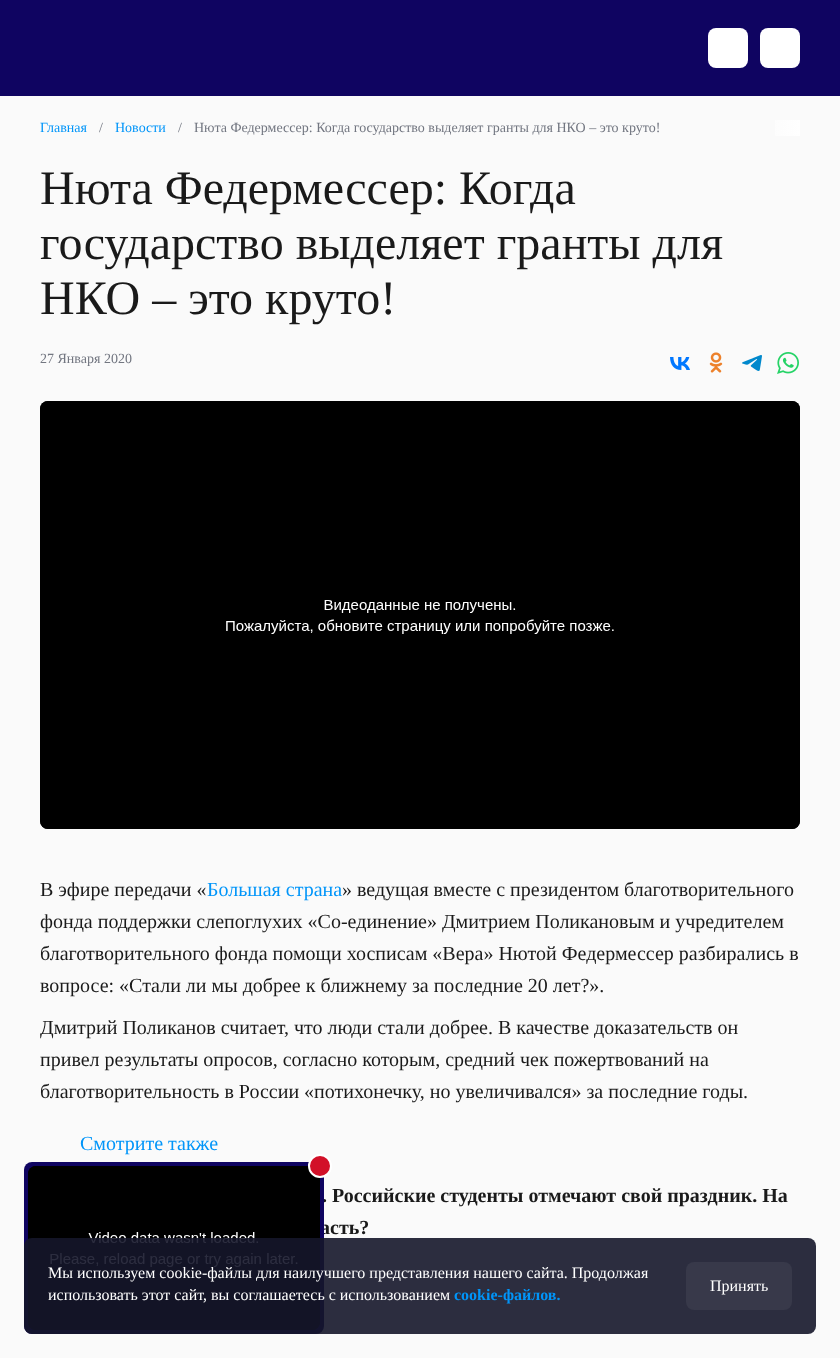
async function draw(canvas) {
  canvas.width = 840;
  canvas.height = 1358;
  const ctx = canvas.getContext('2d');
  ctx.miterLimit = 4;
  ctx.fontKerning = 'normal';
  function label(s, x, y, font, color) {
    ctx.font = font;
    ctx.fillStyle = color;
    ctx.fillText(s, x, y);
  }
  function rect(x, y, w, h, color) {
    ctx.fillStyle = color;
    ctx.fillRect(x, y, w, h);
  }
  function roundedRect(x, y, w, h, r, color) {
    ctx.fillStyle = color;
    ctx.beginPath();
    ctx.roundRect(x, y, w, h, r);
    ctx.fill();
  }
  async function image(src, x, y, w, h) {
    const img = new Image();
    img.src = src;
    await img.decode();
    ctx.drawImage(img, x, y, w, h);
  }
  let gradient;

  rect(0, 0, 840, 1358, '#fafafa');
  rect(0, 0, 840, 96, '#0f0461');
  roundedRect(708, 28, 40, 40, 8, '#fff');
  roundedRect(760, 28, 40, 40, 8, '#fff');
  label('Главная', 40, 132, '14px Liberation Serif', '#0095f9');
  label('/', 99, 132, '14px Liberation Serif', '#727680');
  label('Новости', 115, 132, '14px Liberation Serif', '#0095f9');
  label('/', 178, 132, '14px Liberation Serif', '#727680');
  label('Нюта Федермессер: Когда государство выделяет гранты для НКО – это круто!', 194, 132, '14px Liberation Serif', '#727680');
  gradient = ctx.createLinearGradient(750, 128, 800, 128);
  gradient.addColorStop(0, '#fafafa');
  gradient.addColorStop(1, '#fff');
  ctx.fillStyle = gradient;
  ctx.fillRect(775, 120, 25, 16);
  label('Нюта Федермессер: Когда', 40, 204, '48px Liberation Serif', '#1a1a1a');
  label('государство выделяет гранты для', 40, 259, '48px Liberation Serif', '#1a1a1a');
  label('НКО – это круто!', 40, 314, '48px Liberation Serif', '#1a1a1a');
  label('27 Января 2020', 40, 363, '14px Liberation Serif', '#727680');
  await image('assets/img1.png', 670, 357, 20, 13);
  await image('assets/img2.png', 709, 352, 14, 21);
  await image('assets/img3.png', 742, 355, 20, 16);
  await image('assets/img4.png', 777, 352, 22, 22);
  await image('assets/img5.png', 40, 401, 760, 428);
  label('В эфире передачи «', 40, 896, '20px Liberation Serif', '#1a1a1a');
  label('Большая страна', 207, 896, '20px Liberation Serif', '#0095f9');
  label('» ведущая вместе с президентом благотворительного', 342, 896, '20px Liberation Serif', '#1a1a1a');
  label('фонда поддержки слепоглухих «Со-единение» Дмитрием Поликановым и учредителем', 40, 928, '20px Liberation Serif', '#1a1a1a');
  label('благотворительного фонда помощи хосписам «Вера» Нютой Федермессер разбирались в', 40, 960, '20px Liberation Serif', '#1a1a1a');
  label('вопросе: «Стали ли мы добрее к ближнему за последние 20 лет?».', 40, 992, '20px Liberation Serif', '#1a1a1a');
  label('Дмитрий Поликанов считает, что люди стали добрее. В качестве доказательств он', 40, 1034, '20px Liberation Serif', '#1a1a1a');
  label('привел результаты опросов, согласно которым, средний чек пожертвований на', 40, 1066, '20px Liberation Serif', '#1a1a1a');
  label('благотворительность в России «потихонечку, но увеличивался» за последние годы.', 40, 1098, '20px Liberation Serif', '#1a1a1a');
  label('Смотрите также', 80, 1150, '20px Liberation Serif', '#0095f9');
  label('. Российские студенты отмечают свой праздник. На', 322, 1202, 'bold 20px Liberation Serif', '#1a1a1a');
  label('асть?', 320, 1234, 'bold 20px Liberation Serif', '#1a1a1a');
  roundedRect(24, 1162, 300, 172, 8, '#0f0461');
  await image('assets/img6.png', 28, 1166, 292, 164);
  ctx.fillStyle = '#d21028';
  ctx.beginPath();
  ctx.arc(320, 1166, 11, 0, 2 * Math.PI);
  ctx.fill();
  ctx.strokeStyle = '#fff';
  ctx.lineWidth = 2;
  ctx.stroke();
  roundedRect(24, 1238, 792, 96, 8, '#15162ae6');
  label('Мы используем cookie-файлы для наилучшего представления нашего сайта. Продолжая', 48, 1278, '16px Liberation Serif', '#fff');
  label('использовать этот сайт, вы соглашаетесь с использованием', 48, 1300, '16px Liberation Serif', '#fff');
  label('cookie-файлов.', 454, 1300, 'bold 16px Liberation Serif', '#0095f9');
  roundedRect(686, 1262, 106, 48, 8, '#38394a');
  label('Принять', 710, 1291, '16px Liberation Serif', '#fff');
}

draw(document.querySelector('canvas'));
